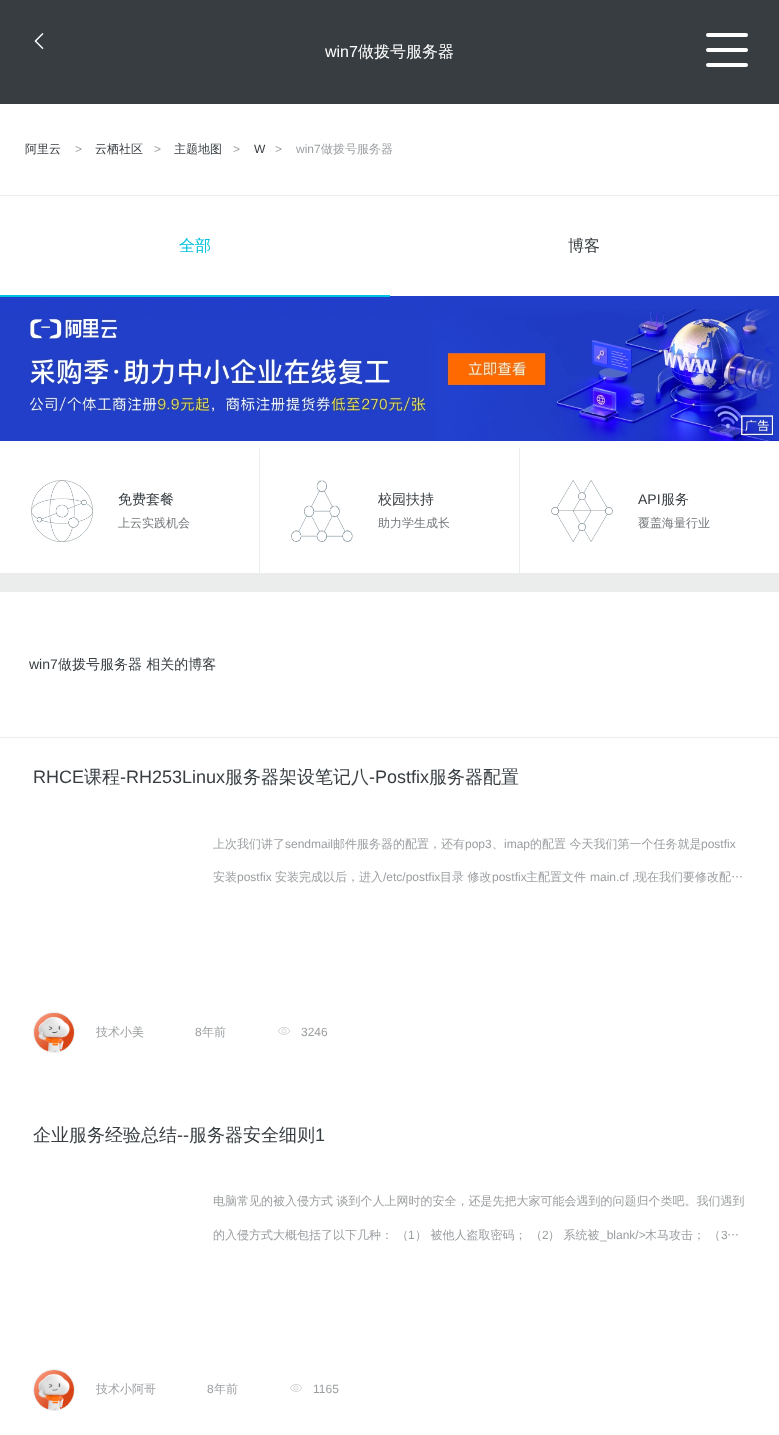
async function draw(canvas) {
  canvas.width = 779;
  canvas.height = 1435;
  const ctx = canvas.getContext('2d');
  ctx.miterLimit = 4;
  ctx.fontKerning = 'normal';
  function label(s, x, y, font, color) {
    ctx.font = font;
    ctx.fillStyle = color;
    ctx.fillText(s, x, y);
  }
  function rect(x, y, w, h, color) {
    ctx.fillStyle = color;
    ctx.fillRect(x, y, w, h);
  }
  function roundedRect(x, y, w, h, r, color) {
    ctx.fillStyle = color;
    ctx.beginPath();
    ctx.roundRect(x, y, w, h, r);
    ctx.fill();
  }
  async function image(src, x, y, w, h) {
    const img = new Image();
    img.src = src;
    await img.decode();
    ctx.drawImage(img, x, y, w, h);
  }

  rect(0, 0, 779, 1435, '#fff');
  rect(0, 0, 779, 104, '#383d41');
  await image('assets/img1.png', 34, 33, 10, 16);
  label('win7', 325, 57, '16px Liberation Sans', '#fff');
  label('做拨号服务器', 358, 57, '500 16px WenQuanYi Zen Hei', '#fff');
  roundedRect(706, 33, 42, 4, 2, '#fff');
  roundedRect(706, 48, 42, 4, 2, '#fff');
  roundedRect(706, 63, 42, 4, 2, '#fff');
  label('阿里云', 25, 153, '500 12px WenQuanYi Zen Hei', '#373d41');
  label('>', 75, 153, '12px Liberation Sans', '#9b9ea0');
  label('云栖社区', 95, 153, '500 12px WenQuanYi Zen Hei', '#373d41');
  label('>', 154, 153, '12px Liberation Sans', '#9b9ea0');
  label('主题地图', 174, 153, '500 12px WenQuanYi Zen Hei', '#373d41');
  label('>', 233, 153, '12px Liberation Sans', '#9b9ea0');
  label('W', 254, 153, '12px Liberation Sans', '#373d41');
  label('>', 275, 153, '12px Liberation Sans', '#9b9ea0');
  label('win7', 296, 153, '12px Liberation Sans', '#9b9ea0');
  label('做拨号服务器', 321, 153, '500 12px WenQuanYi Zen Hei', '#9b9ea0');
  roundedRect(0, 195, 779, 1, 0.5, '#ebecec');
  label('全部', 179, 251, '500 16px WenQuanYi Zen Hei', '#00c1de');
  label('博客', 568, 251, '500 16px WenQuanYi Zen Hei', '#373d41');
  await image('assets/img2.png', 0, 296, 779, 145);
  rect(0, 295, 390, 2, '#00c1de');
  await image('assets/img3.png', 31, 480, 62, 62);
  label('免费套餐', 118, 504, '500 14px WenQuanYi Zen Hei', '#373d41');
  label('上云实践机会', 118, 527, '500 12px WenQuanYi Zen Hei', '#73777a');
  roundedRect(259, 448, 1, 125, 0.5, '#ebecec');
  await image('assets/img4.png', 291, 480, 62, 62);
  label('校园扶持', 378, 504, '500 14px WenQuanYi Zen Hei', '#373d41');
  label('助力学生成长', 378, 527, '500 12px WenQuanYi Zen Hei', '#73777a');
  roundedRect(519, 448, 1, 125, 0.5, '#ebecec');
  await image('assets/img5.png', 551, 480, 62, 62);
  label('API', 638, 504, '14px Liberation Sans', '#373d41');
  label('服务', 661, 504, '500 14px WenQuanYi Zen Hei', '#373d41');
  label('覆盖海量行业', 638, 527, '500 12px WenQuanYi Zen Hei', '#73777a');
  rect(0, 573, 779, 19, '#ebecec');
  label('win7', 29, 669, '14px Liberation Sans', '#373d41');
  label('做拨号服务器 相关的博客', 58, 669, '500 14px WenQuanYi Zen Hei', '#373d41');
  roundedRect(0, 737, 779, 1, 0.5, '#ebecec');
  label('RHCE', 33, 783, '18px Liberation Sans', '#373d41');
  label('课程', 84, 783, '500 18px WenQuanYi Zen Hei', '#373d41');
  label('-RH253Linux', 120, 783, '18px Liberation Sans', '#373d41');
  label('服务器架设笔记八', 225, 783, '500 18px WenQuanYi Zen Hei', '#373d41');
  label('-Postfix', 369, 783, '18px Liberation Sans', '#373d41');
  label('服务器配置', 429, 783, '500 18px WenQuanYi Zen Hei', '#373d41');
  label('上次我们讲了', 213, 848, '500 12px WenQuanYi Zen Hei', '#9b9ea0');
  label('sendmail', 285, 848, '12px Liberation Sans', '#9b9ea0');
  label('邮件服务器的配置，还有', 333, 848, '500 12px WenQuanYi Zen Hei', '#9b9ea0');
  label('pop3', 465, 848, '12px Liberation Sans', '#9b9ea0');
  label('、', 492, 848, '500 12px WenQuanYi Zen Hei', '#9b9ea0');
  label('imap', 504, 848, '12px Liberation Sans', '#9b9ea0');
  label('的配置 今天我们第一个任务就是', 530, 848, '500 12px WenQuanYi Zen Hei', '#9b9ea0');
  label('postfix', 701, 848, '12px Liberation Sans', '#9b9ea0');
  label('安装', 213, 881, '500 12px WenQuanYi Zen Hei', '#9b9ea0');
  label('postfix', 237, 881, '12px Liberation Sans', '#9b9ea0');
  label('安装完成以后，进入', 275, 881, '500 12px WenQuanYi Zen Hei', '#9b9ea0');
  label('/etc/postfix', 383, 881, '12px Liberation Sans', '#9b9ea0');
  label('目录 修改', 440, 881, '500 12px WenQuanYi Zen Hei', '#9b9ea0');
  label('postfix', 492, 881, '12px Liberation Sans', '#9b9ea0');
  label('主配置文件', 526, 881, '500 12px WenQuanYi Zen Hei', '#9b9ea0');
  label('main.cf ,', 590, 881, '12px Liberation Sans', '#9b9ea0');
  label('现在我们要修改配…', 635, 881, '500 12px WenQuanYi Zen Hei', '#9b9ea0');
  ctx.beginPath();
  ctx.roundRect(33.5, 1012.5, 41, 40, 20);
  ctx.strokeStyle = '#ebecec';
  ctx.stroke();
  await image('assets/img6.png', 34, 1013, 40, 39);
  label('技术小美', 96, 1036, '500 12px WenQuanYi Zen Hei', '#9b9ea0');
  label('8', 195, 1036, '12px Liberation Sans', '#9b9ea0');
  label('年前', 202, 1036, '500 12px WenQuanYi Zen Hei', '#9b9ea0');
  await image('assets/img7.png', 278, 1027, 12, 8);
  label('3246', 301, 1036, '12px Liberation Sans', '#9b9ea0');
  label('企业服务经验总结', 33, 1141, '500 18px WenQuanYi Zen Hei', '#373d41');
  label('--', 177, 1141, '18px Liberation Sans', '#373d41');
  label('服务器安全细则', 189, 1141, '500 18px WenQuanYi Zen Hei', '#373d41');
  label('1', 315, 1141, '18px Liberation Sans', '#373d41');
  label('电脑常见的被入侵方式 谈到个人上网时的安全，还是先把大家可能会遇到的问题归个类吧。我们遇到', 213, 1205, '500 12px WenQuanYi Zen Hei', '#9b9ea0');
  label('的入侵方式大概包括了以下几种： （', 213, 1239, '500 12px WenQuanYi Zen Hei', '#9b9ea0');
  label('1', 408, 1239, '12px Liberation Sans', '#9b9ea0');
  label('） 被他人盗取密码； （', 415, 1239, '500 12px WenQuanYi Zen Hei', '#9b9ea0');
  label('2', 542, 1239, '12px Liberation Sans', '#9b9ea0');
  label('） 系统被', 548, 1239, '500 12px WenQuanYi Zen Hei', '#9b9ea0');
  label('_blank/>', 600, 1239, '12px Liberation Sans', '#9b9ea0');
  label('木马攻击； （', 645, 1239, '500 12px WenQuanYi Zen Hei', '#9b9ea0');
  label('3', 721, 1239, '12px Liberation Sans', '#9b9ea0');
  label('…', 727, 1239, '500 12px WenQuanYi Zen Hei', '#9b9ea0');
  ctx.beginPath();
  ctx.arc(54, 1390, 20.5, 0, 2 * Math.PI);
  ctx.stroke();
  await image('assets/img8.png', 34, 1370, 40, 40);
  label('技术小阿哥', 96, 1393, '500 12px WenQuanYi Zen Hei', '#9b9ea0');
  label('8', 207, 1393, '12px Liberation Sans', '#9b9ea0');
  label('年前', 214, 1393, '500 12px WenQuanYi Zen Hei', '#9b9ea0');
  await image('assets/img7.png', 290, 1384, 12, 8);
  label('1165', 313, 1393, '12px Liberation Sans', '#9b9ea0');
}

draw(document.querySelector('canvas'));
